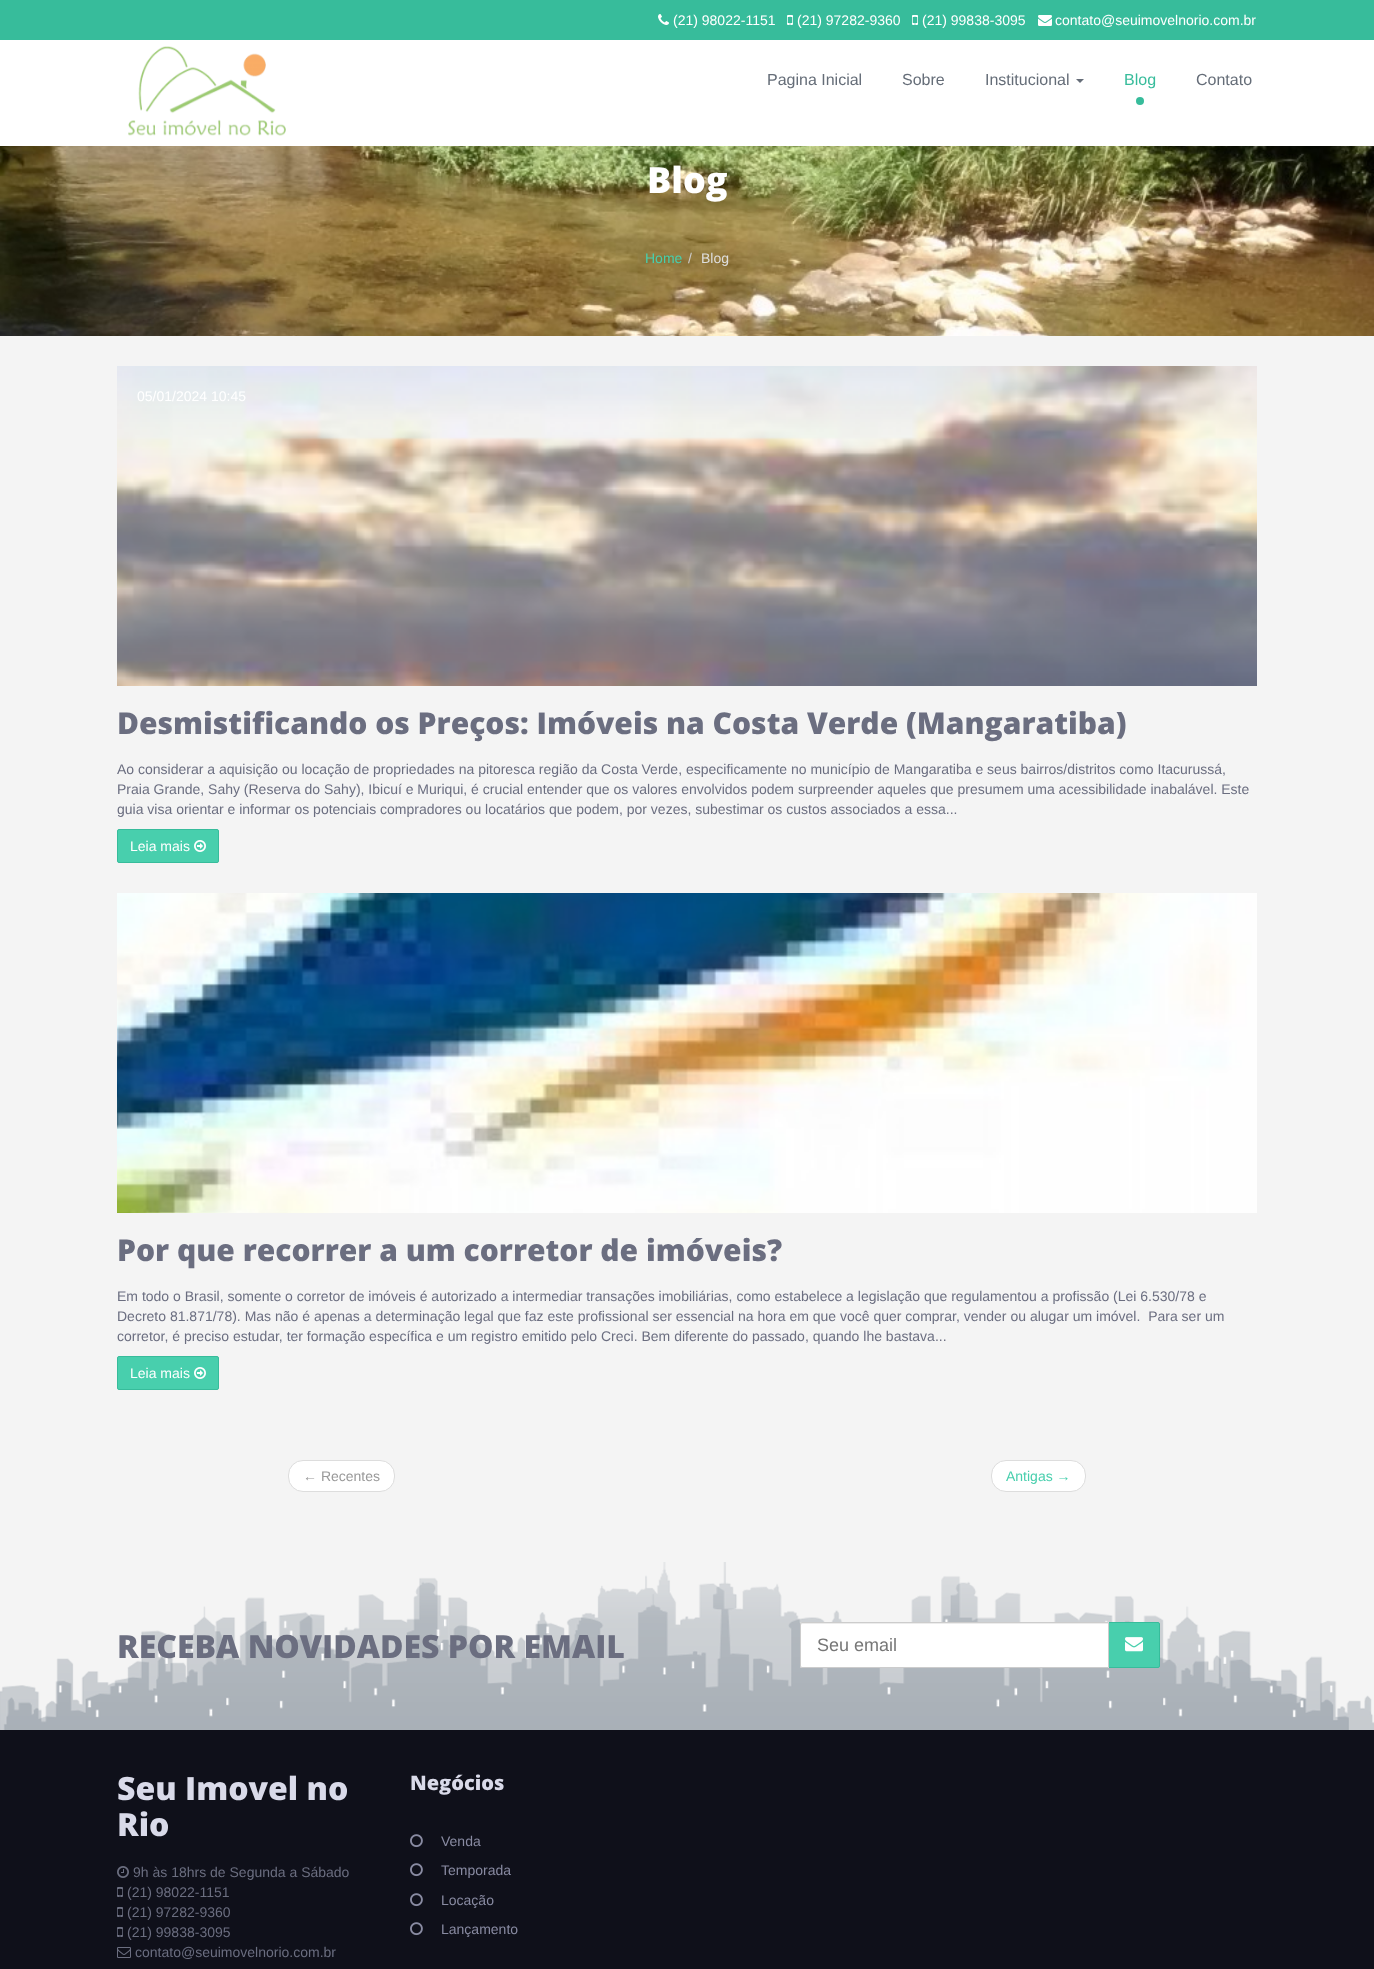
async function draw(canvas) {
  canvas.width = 1374;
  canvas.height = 1969;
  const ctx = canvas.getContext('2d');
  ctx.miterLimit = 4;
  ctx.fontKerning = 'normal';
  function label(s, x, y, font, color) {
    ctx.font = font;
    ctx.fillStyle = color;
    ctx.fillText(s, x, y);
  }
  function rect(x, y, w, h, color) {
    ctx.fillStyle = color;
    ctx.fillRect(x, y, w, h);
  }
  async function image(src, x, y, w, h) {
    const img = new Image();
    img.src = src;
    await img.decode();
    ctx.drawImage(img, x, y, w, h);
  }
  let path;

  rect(0, 0, 1374, 1969, '#f4f4f4');
  rect(0, 40, 1374, 106, '#fff');
  rect(0, 0, 1374, 40, '#37bc9b');
  await image('assets/img1.png', 658, 14, 11, 11);
  label('(21) 98022-1151', 673, 25, '14px Liberation Sans', '#fff');
  await image('assets/img2.png', 787, 15, 6, 10);
  label('(21) 97282-9360', 797, 25, '14px Liberation Sans', '#fff');
  await image('assets/img2.png', 912, 15, 6, 10);
  label('(21) 99838-3095', 922, 25, '14px Liberation Sans', '#fff');
  await image('assets/img3.png', 1038, 15, 14, 11);
  label('contato@seuimovelnorio.com.br', 1055, 25, '14px Liberation Sans', '#fff');
  await image('assets/img4.png', 128, 46, 158, 90);
  label('Pagina Inicial', 767, 85, '16px Liberation Sans', '#656d78');
  label('Sobre', 902, 85, '16px Liberation Sans', '#656d78');
  label('Institucional', 985, 85, '16px Liberation Sans', '#656d78');
  path = new Path2D('M1076 79H1084L1080 83Z');
  ctx.fill(path);
  label('Blog', 1124, 85, '16px Liberation Sans', '#37bc9b');
  ctx.beginPath();
  ctx.arc(1140, 101, 4, 0, 2 * Math.PI);
  ctx.fill();
  label('Contato', 1196, 85, '16px Liberation Sans', '#656d78');
  await image('assets/img5.png', 0, 146, 1374, 190);
  label('Blog', 647, 193, '800 36px Open Sans', '#fff');
  label('Home', 645, 263, '14px Liberation Sans', '#48cfad');
  label('/', 688, 263, '14px Liberation Sans', '#ccc');
  label('Blog', 701, 263, '14px Liberation Sans', '#dedede');
  await image('assets/img6.png', 117, 366, 1140, 320);
  label('05/01/2024 10:45', 137, 401, '14px Liberation Sans', '#fff');
  label('Desmistificando os Preços: Imóveis na Costa Verde (Mangaratiba)', 117, 734, '800 30px Open Sans', '#6b6e80');
  label('Ao considerar a aquisição ou locação de propriedades na pitoresca região da Costa Verde, especificamente no município de Mangaratiba e seus bairros/distritos como Itacurussá,', 117, 774, '14px Liberation Sans', '#6b6e80');
  label('Praia Grande, Sahy (Reserva do Sahy), Ibicuí e Muriqui, é crucial entender que os valores envolvidos podem surpreender aqueles que presumem uma acessibilidade inabalável. Este', 117, 794, '14px Liberation Sans', '#6b6e80');
  label('guia visa orientar e informar os potenciais compradores ou locatários que podem, por vezes, subestimar os custos associados a essa...', 117, 814, '14px Liberation Sans', '#6b6e80');
  ctx.fillStyle = '#48cfad';
  ctx.beginPath();
  ctx.roundRect(117.5, 829.5, 101, 33, 1.5);
  ctx.fill();
  ctx.strokeStyle = '#37bc9b';
  ctx.stroke();
  label('Leia mais', 130, 851, '14px Liberation Sans', '#fff');
  await image('assets/img7.png', 194, 840, 12, 12);
  await image('assets/img8.png', 117, 893, 1140, 320);
  label('Por que recorrer a um corretor de imóveis?', 117, 1261, '800 30px Open Sans', '#6b6e80');
  label('Em todo o Brasil, somente o corretor de imóveis é autorizado a intermediar transações imobiliárias, como estabelece a legislação que regulamentou a profissão (Lei 6.530/78 e', 117, 1301, '14px Liberation Sans', '#6b6e80');
  label('Decreto 81.871/78). Mas não é apenas a determinação legal que faz este profissional ser essencial na hora em que você quer comprar, vender ou alugar um imóvel.  Para ser um', 117, 1321, '14px Liberation Sans', '#6b6e80');
  label('corretor, é preciso estudar, ter formação específica e um registro emitido pelo Creci. Bem diferente do passado, quando lhe bastava...', 117, 1341, '14px Liberation Sans', '#6b6e80');
  ctx.fillStyle = '#48cfad';
  ctx.beginPath();
  ctx.roundRect(117.5, 1356.5, 101, 33, 1.5);
  ctx.fill();
  ctx.stroke();
  label('Leia mais', 130, 1378, '14px Liberation Sans', '#fff');
  await image('assets/img7.png', 194, 1367, 12, 12);
  ctx.beginPath();
  ctx.roundRect(288.5, 1460.5, 106, 31, 14.5);
  ctx.fill();
  ctx.strokeStyle = '#ddd';
  ctx.stroke();
  label('← Recentes', 303, 1481, '14px Liberation Sans', '#999');
  ctx.fillStyle = '#fff';
  ctx.beginPath();
  ctx.roundRect(991.5, 1460.5, 94, 31, 14.5);
  ctx.fill();
  ctx.stroke();
  label('Antigas →', 1006, 1481, '14px Liberation Sans', '#48cfad');
  await image('assets/img9.png', 0, 1562, 1374, 168);
  label('RECEBA NOVIDADES POR EMAIL', 117, 1658, '800 32px Open Sans', '#6b6e80');
  ctx.fillStyle = '#48cfad';
  ctx.beginPath();
  ctx.roundRect(1108.5, 1622.5, 51, 45, [0, 1.5, 1.5, 0]);
  ctx.fill();
  ctx.strokeStyle = '#37bc9b';
  ctx.stroke();
  ctx.fillStyle = '#fff';
  ctx.beginPath();
  ctx.roundRect(800, 1622, 309, 46, [2, 0, 0, 2]);
  ctx.fill();
  ctx.fillStyle = '#ececec';
  path = new Path2D('M802 1624H1108V1623H802H801V1625Z');
  ctx.fill(path);
  ctx.beginPath();
  ctx.roundRect(800.5, 1622.5, 308, 45, [1.5, 0, 0, 1.5]);
  ctx.strokeStyle = '#ccc';
  ctx.stroke();
  label('Seu email', 817, 1651, '18px Liberation Sans', '#777');
  await image('assets/img10.png', 1125, 1637, 18, 15);
  rect(0, 1730, 1374, 239, '#0f101a');
  label('Seu Imovel no', 117, 1800, '800 32px Open Sans', '#d9dae9');
  label('Rio', 117, 1836, '800 32px Open Sans', '#d9dae9');
  await image('assets/img11.png', 117, 1866, 12, 12);
  label('9h às 18hrs de Segunda a Sábado', 133, 1877, '14px Liberation Sans', '#6b6e80');
  await image('assets/img12.png', 117, 1887, 6, 10);
  label('(21) 98022-1151', 127, 1897, '14px Liberation Sans', '#6b6e80');
  await image('assets/img12.png', 117, 1907, 6, 10);
  label('(21) 97282-9360', 127, 1917, '14px Liberation Sans', '#6b6e80');
  await image('assets/img12.png', 117, 1927, 6, 10);
  label('(21) 99838-3095', 127, 1937, '14px Liberation Sans', '#6b6e80');
  await image('assets/img13.png', 117, 1947, 14, 11);
  label('contato@seuimovelnorio.com.br', 135, 1957, '14px Liberation Sans', '#6b6e80');
  label('Negócios', 410, 1790, '800 20px Open Sans', '#d9dae9');
  await image('assets/img14.png', 410, 1834, 13, 14);
  label('Venda', 441, 1846, '14px Liberation Sans', '#898ba2');
  await image('assets/img14.png', 410, 1863, 13, 14);
  label('Temporada', 441, 1875, '14px Liberation Sans', '#898ba2');
  await image('assets/img14.png', 410, 1893, 13, 14);
  label('Locação', 441, 1905, '14px Liberation Sans', '#898ba2');
  await image('assets/img14.png', 410, 1922, 13, 14);
  label('Lançamento', 441, 1934, '14px Liberation Sans', '#898ba2');
}

draw(document.querySelector('canvas'));
